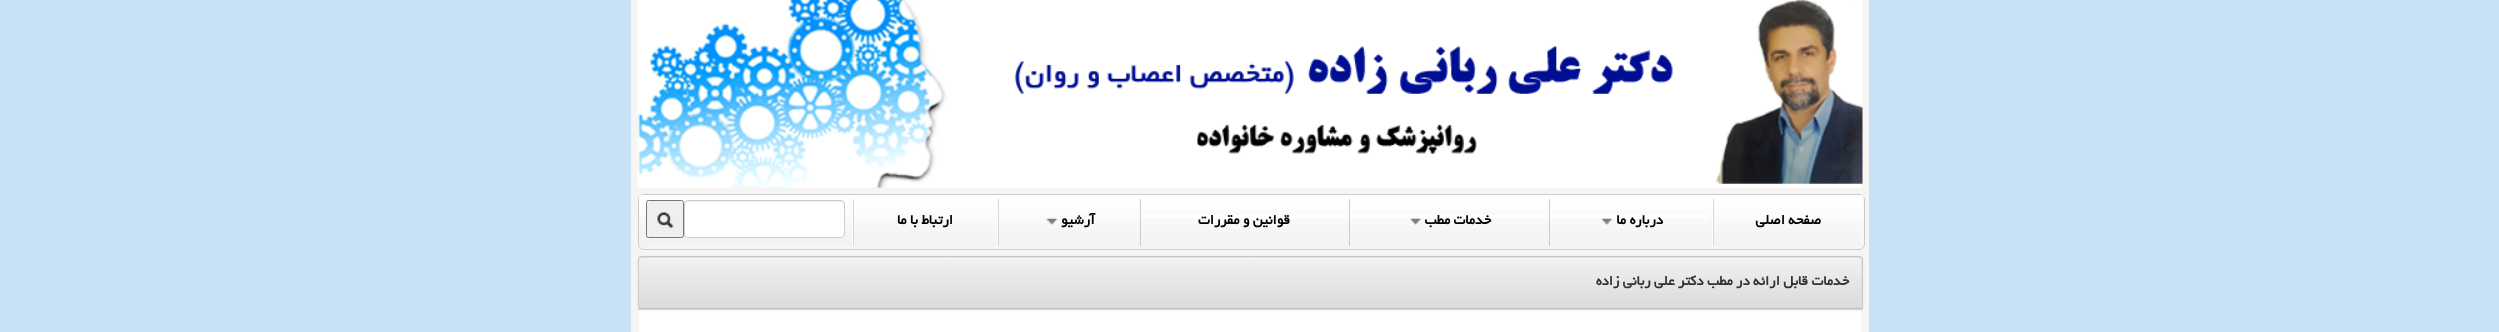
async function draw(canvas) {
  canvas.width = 2499;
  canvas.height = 332;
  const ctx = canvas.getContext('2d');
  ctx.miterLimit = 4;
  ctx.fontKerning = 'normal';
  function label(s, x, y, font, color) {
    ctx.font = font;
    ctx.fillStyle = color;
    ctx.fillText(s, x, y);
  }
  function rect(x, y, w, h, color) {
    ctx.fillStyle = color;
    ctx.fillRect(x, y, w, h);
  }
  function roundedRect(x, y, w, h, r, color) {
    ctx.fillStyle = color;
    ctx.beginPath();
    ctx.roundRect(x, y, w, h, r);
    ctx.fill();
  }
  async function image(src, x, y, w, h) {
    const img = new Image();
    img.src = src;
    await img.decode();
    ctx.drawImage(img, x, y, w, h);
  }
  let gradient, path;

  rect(0, 0, 2499, 332, '#c8e1f5');
  rect(631, 0, 1238, 332, '#f7f4f4');
  await image('assets/img1.png', 637, 0, 1226, 188);
  ctx.beginPath();
  ctx.roundRect(638.5, 194.5, 1226, 55, 5.5);
  ctx.strokeStyle = '#ccc';
  ctx.stroke();
  await image('assets/img2.png', 639, 195, 1225, 50);
  rect(1712, 215, 151, 31, '#fff');
  rect(1713, 199, 1, 47, '#ccc');
  await image('assets/img3.png', 1713, 199, 150, 47);
  ctx.direction = 'rtl';
  label('صفحه اصلی', 1821, 224, 'bold 15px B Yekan', '#000');
  rect(1550, 215, 160, 3, '#fff');
  rect(1549, 199, 1, 47, '#ccc');
  await image('assets/img4.png', 1550, 218, 160, 28);
  label('درباره ما', 1663, 224, 'bold 15px B Yekan', '#000');
  await image('assets/img5.png', 1601, 218, 12, 7);
  rect(1350, 215, 196, 3, '#fff');
  rect(1349, 199, 1, 47, '#ccc');
  await image('assets/img6.png', 1350, 218, 196, 28);
  label('خدمات مطب', 1491, 224, 'bold 15px B Yekan', '#000');
  await image('assets/img7.png', 1410, 218, 12, 7);
  rect(1141, 215, 205, 31, '#fff');
  rect(1140, 199, 1, 47, '#ccc');
  await image('assets/img8.png', 1141, 218, 205, 28);
  label('قوانین و مقررات', 1290, 224, 'bold 15px B Yekan', '#000');
  rect(997, 215, 141, 31, '#fff');
  rect(998, 199, 1, 47, '#ccc');
  await image('assets/img9.png', 998, 199, 140, 47);
  label('آرشیو', 1095, 224, 'bold 15px B Yekan', '#000');
  await image('assets/img5.png', 1046, 218, 12, 7);
  rect(852, 215, 1, 31, '#fff');
  rect(853, 199, 1, 47, '#ccc');
  await image('assets/img10.png', 853, 199, 142, 47);
  label('ارتباط با ما', 953, 224, 'bold 15px B Yekan', '#000');
  roundedRect(684, 200, 161, 38, 4, '#fff');
  ctx.fillStyle = '#ececec';
  path = new Path2D('M688 202H841C843 202 844 204 844 205C844 203 844 201 842 201H688C685 201 685 203 685 205C685 204 686 202 688 202Z');
  ctx.fill(path);
  ctx.beginPath();
  ctx.roundRect(684.5, 200.5, 160, 37, 3.5);
  ctx.stroke();
  ctx.fillStyle = '#efefef';
  ctx.beginPath();
  ctx.roundRect(646.5, 200.5, 37, 37, 2);
  ctx.fill();
  ctx.strokeStyle = '#767676';
  ctx.stroke();
  await image('assets/img11.png', 657, 212, 17, 17);
  ctx.save();
  ctx.beginPath();
  ctx.roundRect(638, 256, 1225, 55, 4);
  ctx.clip();
  gradient = ctx.createLinearGradient(1250, 205, 1250, 258);
  gradient.addColorStop(0, '#f1f1f1');
  gradient.addColorStop(1, '#dbdbdb');
  ctx.fillStyle = gradient;
  ctx.fillRect(638, 256, 1225, 2);
  gradient = ctx.createLinearGradient(1250, 257, 1250, 310);
  gradient.addColorStop(0, '#f1f1f1');
  gradient.addColorStop(1, '#dbdbdb');
  ctx.fillStyle = gradient;
  ctx.fillRect(638, 258, 1225, 52);
  ctx.restore();
  ctx.fillStyle = '#f9f9f9';
  path = new Path2D('M641 259H1859C1860 259 1861 260 1861 261V260C1861 259 1860 258 1858 258H642C640 258 639 259 639 260V261C639 260 640 259 641 259Z');
  ctx.fill(path);
  ctx.beginPath();
  ctx.roundRect(638.5, 256.5, 1224, 54, 3.5);
  ctx.strokeStyle = '#c2c2c2';
  ctx.stroke();
  rect(639, 309, 1222, 1, '#d2d2d2');
  rect(639, 310, 1222, 22, '#fff');
  ctx.fillStyle = '#ddd';
  ctx.filter = 'blur(2px)';
  ctx.beginPath();
  ctx.roundRect(639, 258, 1222, 51, 4);
  ctx.fill();
  ctx.filter = 'none';
  gradient = ctx.createLinearGradient(1250, 257, 1250, 308);
  gradient.addColorStop(0, '#f1f1f1');
  gradient.addColorStop(1, '#dbdbdb');
  ctx.fillStyle = gradient;
  ctx.beginPath();
  ctx.roundRect(639, 258, 1222, 50, [4, 4, 0, 0]);
  ctx.fill();
  ctx.fillStyle = '#f9f9f9';
  path = new Path2D('M642 259H1858L1860 260C1860 259 1858 258 1857 258H643C642 258 640 259 640 260Z');
  ctx.fill(path);
  rect(639, 308, 1222, 1, '#c2c2c2');
  label('خدمات قابل ارائه در مطب دکتر علی ربانی زاده', 1849, 285, 'bold 15px B Yekan', '#333');
}

draw(document.querySelector('canvas'));
